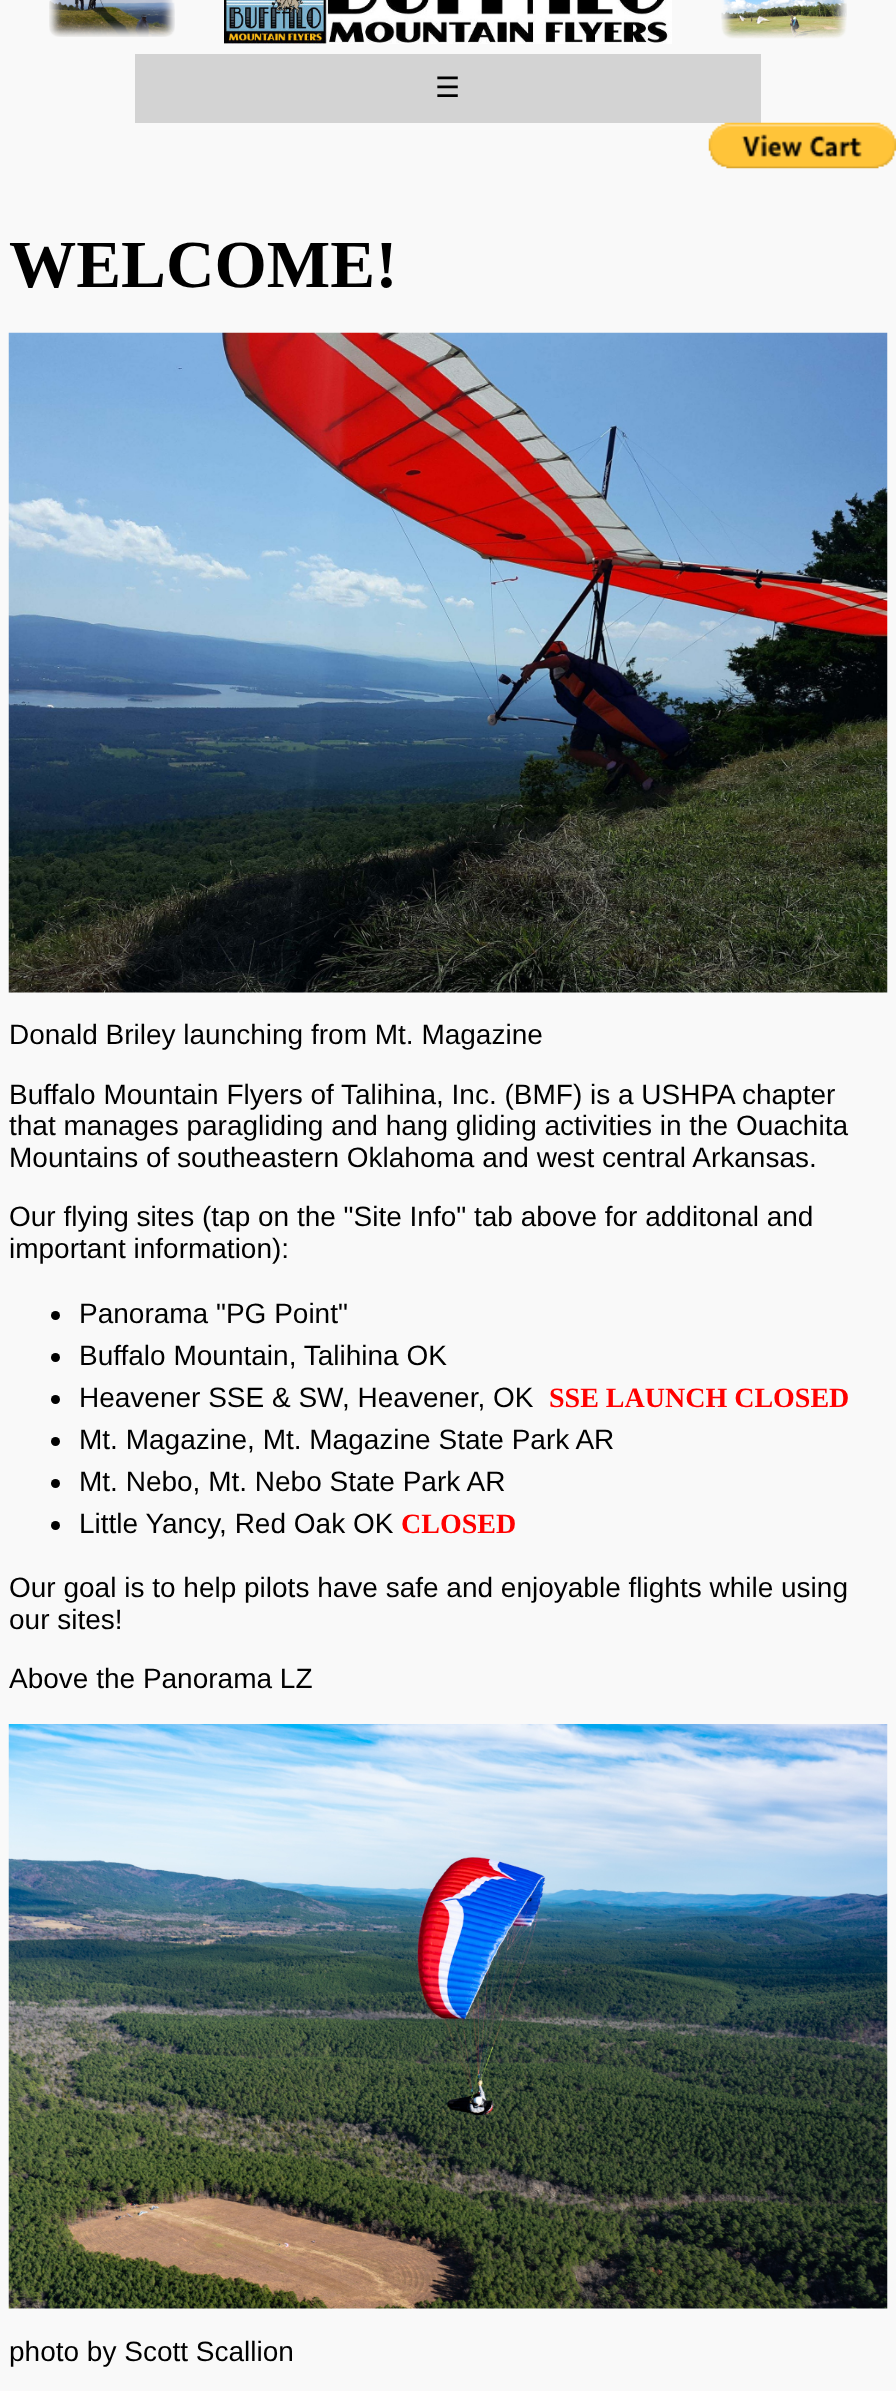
async function draw(canvas) {
  canvas.width = 896;
  canvas.height = 2391;
  const ctx = canvas.getContext('2d');
  ctx.miterLimit = 4;
  ctx.fontKerning = 'normal';
  function label(s, x, y, font, color) {
    ctx.font = font;
    ctx.fillStyle = color;
    ctx.fillText(s, x, y);
  }
  function rect(x, y, w, h, color) {
    ctx.fillStyle = color;
    ctx.fillRect(x, y, w, h);
  }
  async function image(src, x, y, w, h) {
    const img = new Image();
    img.src = src;
    await img.decode();
    ctx.drawImage(img, x, y, w, h);
  }

  rect(0, 0, 896, 2391, '#f9f9f9');
  await image('assets/img1.png', 49, 0, 126, 37);
  await image('assets/img2.png', 224, 0, 448, 44);
  await image('assets/img3.png', 721, 0, 126, 39);
  rect(135, 54, 626, 69, '#d3d3d3');
  label('☰', 435, 97, '28px DejaVu Sans', '#000');
  await image('assets/img4.png', 708, 122, 188, 47);
  label('WELCOME!', 9, 287, 'bold 67.25px Liberation Serif', '#000');
  await image('assets/img5.png', 8, 332, 880, 661);
  label('Donald Briley launching from Mt. Magazine', 9, 1044, '28px Liberation Sans', '#000');
  label('Buffalo Mountain Flyers of Talihina, Inc. (BMF) is a USHPA chapter', 9, 1104, '28px Liberation Sans', '#000');
  label('that manages paragliding and hang gliding activities in the Ouachita', 9, 1135, '28px Liberation Sans', '#000');
  label('Mountains of southeastern Oklahoma and west central Arkansas.', 9, 1167, '28px Liberation Sans', '#000');
  label('Our flying sites (tap on the "Site Info" tab above for additonal and', 9, 1226, '28px Liberation Sans', '#000');
  label('important information):', 9, 1258, '28px Liberation Sans', '#000');
  ctx.beginPath();
  ctx.arc(55.5, 1315.5, 4.5, 0, 2 * Math.PI);
  ctx.fill();
  label('Panorama "PG Point"', 79, 1323, '28px Liberation Sans', '#000');
  ctx.beginPath();
  ctx.arc(55.5, 1357.5, 4.5, 0, 2 * Math.PI);
  ctx.fill();
  label('Buffalo Mountain, Talihina OK', 79, 1365, '28px Liberation Sans', '#000');
  ctx.beginPath();
  ctx.arc(55.5, 1399.5, 4.5, 0, 2 * Math.PI);
  ctx.fill();
  label('Heavener SSE & SW, Heavener, OK', 79, 1407, '28px Liberation Sans', '#000');
  label('SSE LAUNCH CLOSED', 549, 1407, 'bold 28px Liberation Serif', '#f00');
  ctx.fillStyle = '#000';
  ctx.beginPath();
  ctx.arc(55.5, 1441.5, 4.5, 0, 2 * Math.PI);
  ctx.fill();
  label('Mt. Magazine, Mt. Magazine State Park AR', 79, 1449, '28px Liberation Sans', '#000');
  ctx.beginPath();
  ctx.arc(55.5, 1483.5, 4.5, 0, 2 * Math.PI);
  ctx.fill();
  label('Mt. Nebo, Mt. Nebo State Park AR', 79, 1491, '28px Liberation Sans', '#000');
  ctx.beginPath();
  ctx.arc(55.5, 1525.5, 4.5, 0, 2 * Math.PI);
  ctx.fill();
  label('Little Yancy, Red Oak OK', 79, 1533, '28px Liberation Sans', '#000');
  label('CLOSED', 401, 1533, 'bold 28px Liberation Serif', '#f00');
  label('Our goal is to help pilots have safe and enjoyable flights while using', 9, 1597, '28px Liberation Sans', '#000');
  label('our sites!', 9, 1629, '28px Liberation Sans', '#000');
  label('Above the Panorama LZ', 9, 1688, '28px Liberation Sans', '#000');
  await image('assets/img6.png', 8, 1724, 880, 585);
  label('photo by Scott Scallion', 9, 2361, '28px Liberation Sans', '#000');
}

draw(document.querySelector('canvas'));
